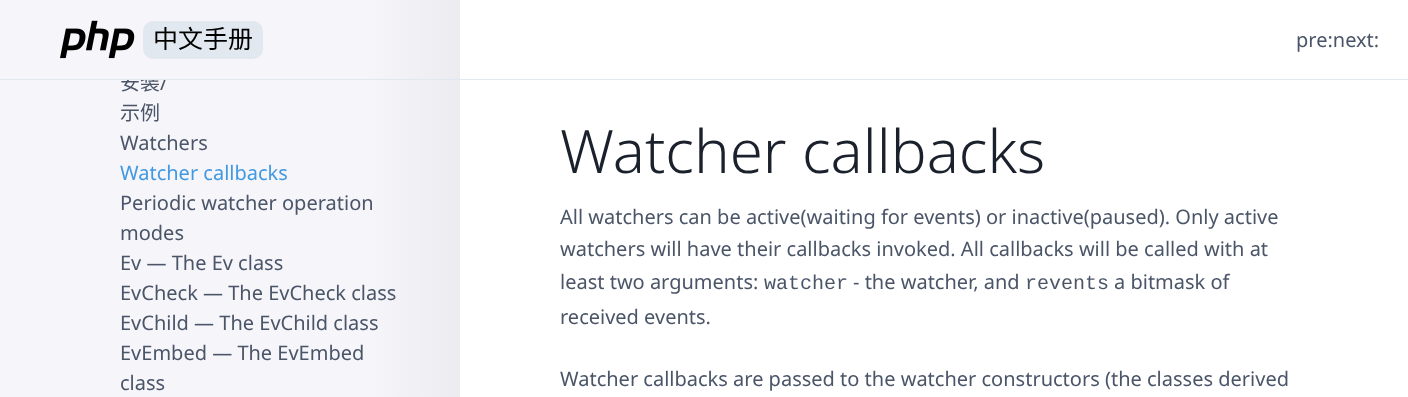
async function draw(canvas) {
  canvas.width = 1408;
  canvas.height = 397;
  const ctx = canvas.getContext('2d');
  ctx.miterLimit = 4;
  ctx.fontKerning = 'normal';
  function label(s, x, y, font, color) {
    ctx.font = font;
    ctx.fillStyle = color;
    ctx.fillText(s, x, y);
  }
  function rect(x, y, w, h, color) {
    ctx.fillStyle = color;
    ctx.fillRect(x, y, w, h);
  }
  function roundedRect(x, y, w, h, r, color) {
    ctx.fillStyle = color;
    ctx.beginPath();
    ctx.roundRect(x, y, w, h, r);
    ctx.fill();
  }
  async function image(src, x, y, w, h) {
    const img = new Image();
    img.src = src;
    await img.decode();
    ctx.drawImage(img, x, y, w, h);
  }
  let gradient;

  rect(0, 0, 1408, 397, '#fff');
  gradient = ctx.createLinearGradient(0, 199, 460, 199);
  gradient.addColorStop(0.8, '#f5f5fa');
  gradient.addColorStop(1, '#ebebf0');
  ctx.fillStyle = gradient;
  ctx.fillRect(0, 0, 460, 397);
  rect(0, 79, 1408, 1, '#e2e8f0');
  await image('assets/img1.png', 60, 20, 75, 39);
  roundedRect(143, 21, 120, 38, 10, '#e2e8f0');
  label('中文手册', 153, 48, '25px Noto Sans CJK SC', '#000');
  label('pre:next:', 1296, 47, '20px Noto Sans', '#4a5568');
  ctx.save();
  ctx.beginPath();
  ctx.rect(0, 80, 460, 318);
  ctx.clip();
  label('安装', 120, 90, '20px Noto Sans CJK SC', '#4a5568');
  label('/', 160, 90, '20px Noto Sans', '#4a5568');
  ctx.restore();
  label('示例', 120, 120, '20px Noto Sans CJK SC', '#4a5568');
  label('Watchers', 120, 150, '20px Noto Sans', '#4a5568');
  label('Watcher callbacks', 120, 180, '20px Noto Sans', '#4299e1');
  label('Periodic watcher operation', 120, 210, '20px Noto Sans', '#4a5568');
  label('modes', 120, 240, '20px Noto Sans', '#4a5568');
  label('Ev — The Ev class', 120, 270, '20px Noto Sans', '#4a5568');
  label('EvCheck — The EvCheck class', 120, 300, '20px Noto Sans', '#4a5568');
  label('EvChild — The EvChild class', 120, 330, '20px Noto Sans', '#4a5568');
  label('EvEmbed — The EvEmbed', 120, 360, '20px Noto Sans', '#4a5568');
  label('class', 120, 390, '20px Noto Sans', '#4a5568');
  label('Watcher callbacks', 560, 173, '300 60px Noto Sans', '#1a202c');
  label('All watchers can be active(waiting for events) or inactive(paused). Only active', 560, 224, '20px Noto Sans', '#4a5568');
  label('watchers will have their callbacks invoked. All callbacks will be called with at', 560, 256, '20px Noto Sans', '#4a5568');
  label('least two arguments:', 560, 289, '20px Noto Sans', '#4a5568');
  label('watcher', 764, 289, '20px Liberation Mono', '#4a5568');
  label('- the watcher, and', 853, 289, '20px Noto Sans', '#4a5568');
  label('revents', 1025, 289, '20px Liberation Mono', '#4a5568');
  label('a bitmask of', 1114, 289, '20px Noto Sans', '#4a5568');
  label('received events.', 560, 324, '20px Noto Sans', '#4a5568');
  label('Watcher callbacks are passed to the watcher constructors (the classes derived', 560, 386, '20px Noto Sans', '#4a5568');
}

draw(document.querySelector('canvas'));
